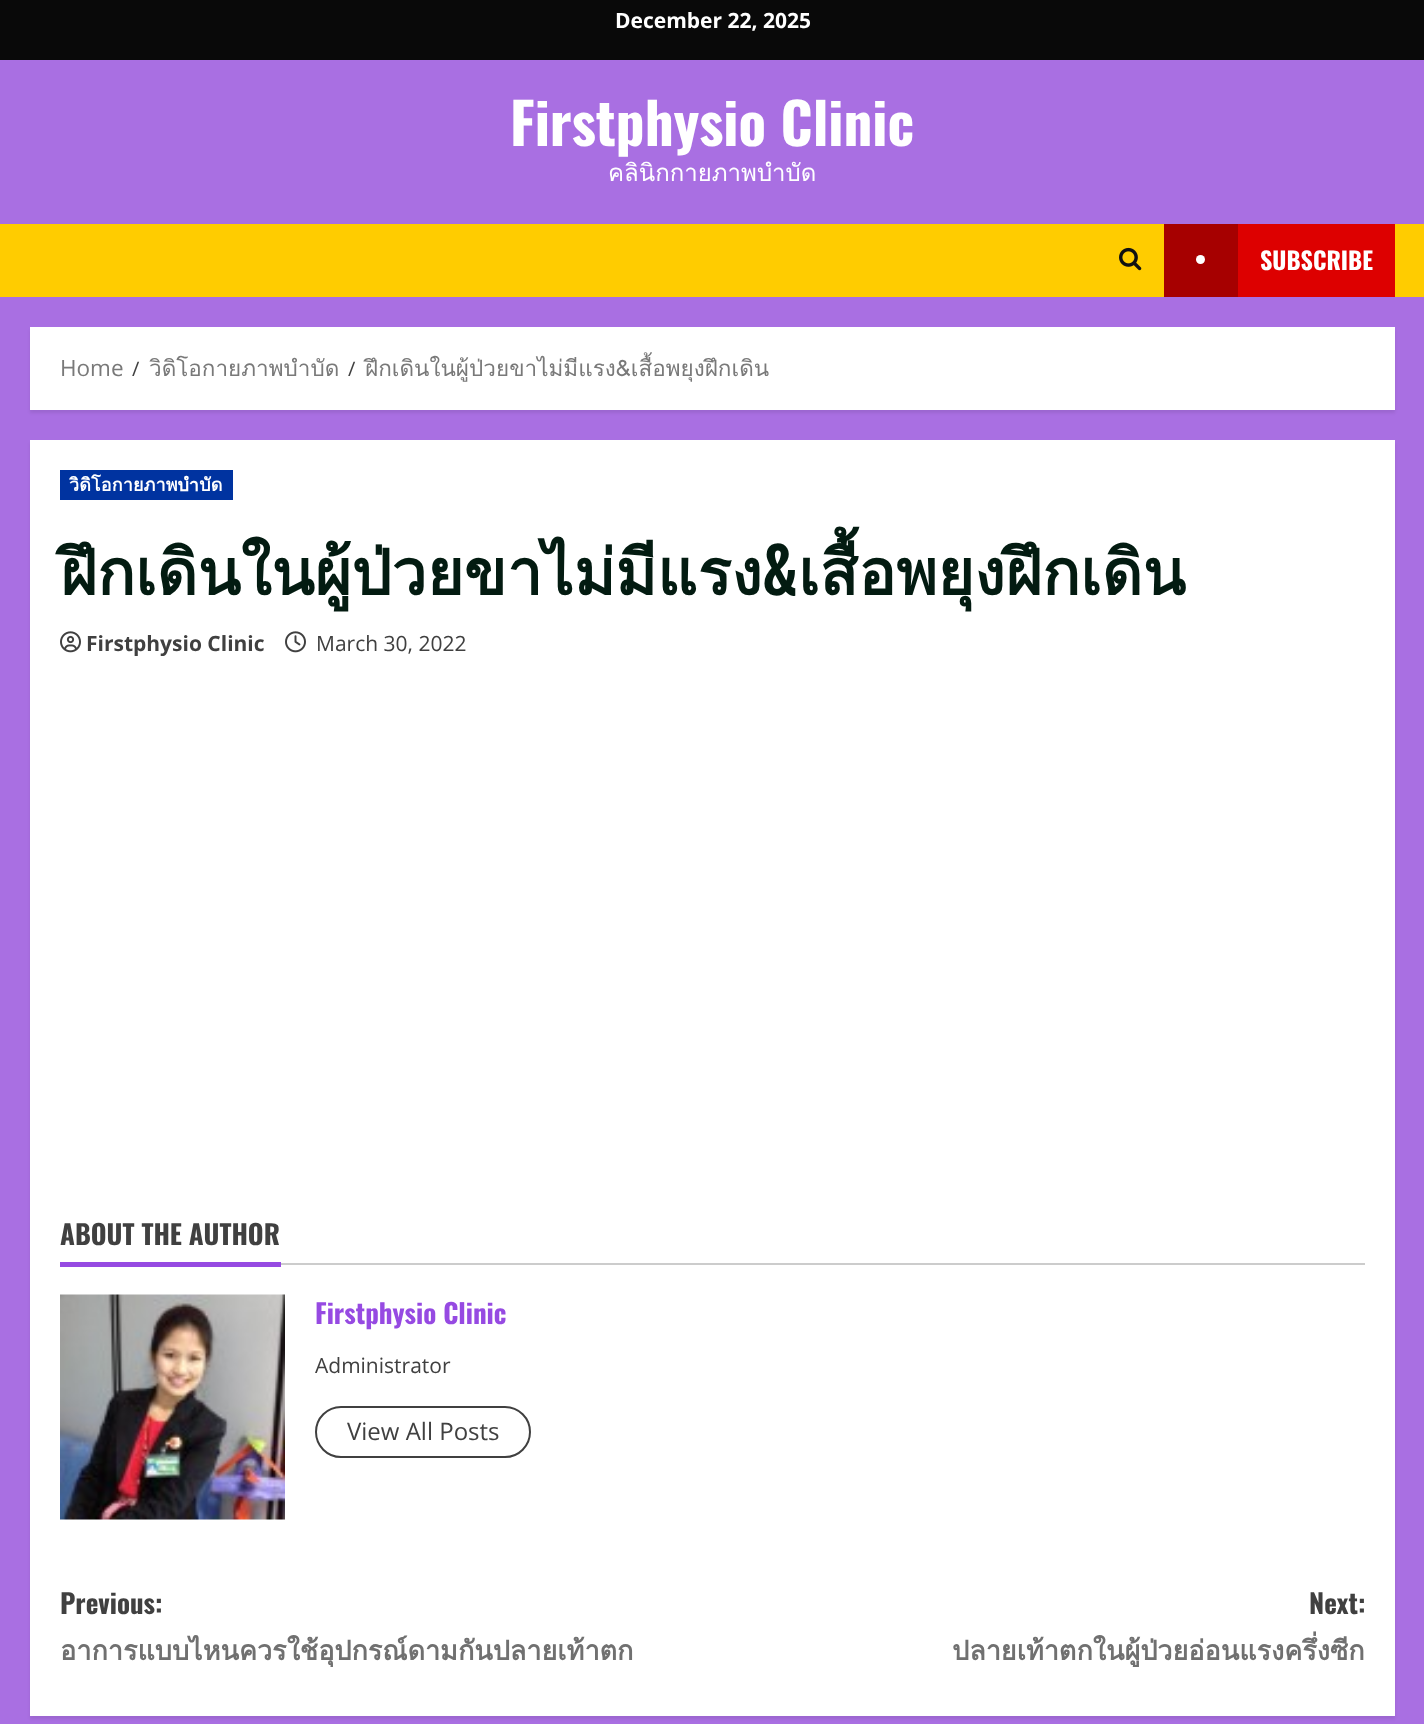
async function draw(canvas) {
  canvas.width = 1424;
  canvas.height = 1724;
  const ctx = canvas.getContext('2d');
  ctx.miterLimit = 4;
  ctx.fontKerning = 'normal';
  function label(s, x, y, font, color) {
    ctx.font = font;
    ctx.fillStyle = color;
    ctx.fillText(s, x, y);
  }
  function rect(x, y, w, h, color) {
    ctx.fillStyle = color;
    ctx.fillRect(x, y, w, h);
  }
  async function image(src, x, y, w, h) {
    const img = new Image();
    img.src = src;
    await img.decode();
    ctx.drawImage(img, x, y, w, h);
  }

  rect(0, 0, 1424, 1724, '#a96fe2');
  rect(0, 0, 1424, 60, '#090909');
  label('December 22, 2025', 615, 28, 'bold 21px Open Sans', '#fff');
  label('Firstphysio Clinic', 510, 146, 'bold 57px Oswald', '#fff');
  label('คลินิกกายภาพบำบัด', 608, 181, '24px Loma', '#fff');
  rect(0, 224, 1424, 73, '#fc0');
  await image('assets/img1.png', 1119, 247, 23, 24);
  rect(1238, 224, 157, 73, '#d00');
  rect(1164, 224, 74, 73, '#a60000');
  ctx.fillStyle = '#fff';
  ctx.beginPath();
  ctx.arc(1200.5, 259.5, 4.5, 0, 2 * Math.PI);
  ctx.fill();
  label('SUBSCRIBE', 1260, 270, 'bold 24px Oswald', '#fff');
  ctx.fillStyle = '#00000014';
  ctx.filter = 'blur(1.5px)';
  ctx.beginPath();
  ctx.rect(30, 330, 1365, 83);
  ctx.fill();
  ctx.filter = 'none';
  rect(30, 327, 1365, 83, '#fff');
  label('Home', 60, 376, '22.5px Open Sans', '#797979');
  label('/', 132, 376, '20px Open Sans', '#404040');
  label('วิดิโอกายภาพบำบัด', 149, 376, '22.5px Loma', '#797979');
  label('/', 348, 376, '20px Open Sans', '#404040');
  label('ฝึกเดินในผู้ป่วยขาไม่มีแรง&เสื้อพยุงฝึกเดิน', 365, 376, '22.5px Loma', '#797979');
  ctx.fillStyle = '#00000014';
  ctx.filter = 'blur(1.5px)';
  ctx.beginPath();
  ctx.rect(30, 443, 1365, 1276);
  ctx.fill();
  ctx.filter = 'none';
  rect(30, 440, 1365, 1276, '#fff');
  rect(60, 470, 173, 30, '#0033a0');
  ctx.letterSpacing = '0.1px';
  label('วิดิโอกายภาพบำบัด', 69, 491, 'bold 18px Loma', '#fff');
  ctx.letterSpacing = '0px';
  label('ฝึกเดินในผู้ป่วยขาไม่มีแรง', 60, 595, 'bold 63px Loma', '#031b11');
  label('&', 762, 595, 'bold 63px Oswald', '#031b11');
  label('เสื้อพยุงฝึกเดิน', 798, 595, 'bold 63px Loma', '#031b11');
  await image('assets/img2.png', 60, 631, 21, 22);
  label('Firstphysio Clinic', 86, 651, 'bold 21px Open Sans', '#404040');
  await image('assets/img3.png', 285, 631, 21, 22);
  label('March 30, 2022', 316, 651, '21px Open Sans', '#404040');
  rect(281, 1263, 1084, 2, '#ccc');
  label('ABOUT THE AUTHOR', 60, 1245, 'bold 27px Oswald', '#404040');
  rect(60, 1262, 221, 5, '#964ae2');
  await image('assets/img4.png', 60, 1294, 225, 226);
  label('Firstphysio Clinic', 315, 1324, 'bold 27px Oswald', '#964ae2');
  label('Administrator', 315, 1373, '21px Open Sans', '#404040');
  ctx.beginPath();
  ctx.roundRect(316, 1407, 214, 50, 25);
  ctx.strokeStyle = '#404040';
  ctx.lineWidth = 2;
  ctx.stroke();
  label('View All Posts', 347, 1440, '24px Open Sans', '#404040');
  label('Previous:', 60, 1614, 'bold 27px Oswald', '#404040');
  label('อาการแบบไหนควรใช้อุปกรณ์ดามกันปลายเท้าตก', 60, 1660, 'bold 27px Loma', '#707070');
  label('Next:', 1309, 1614, 'bold 27px Oswald', '#404040');
  label('ปลายเท้าตกในผู้ป่วยอ่อนแรงครึ่งซีก', 952, 1660, 'bold 27px Loma', '#707070');
}

draw(document.querySelector('canvas'));
